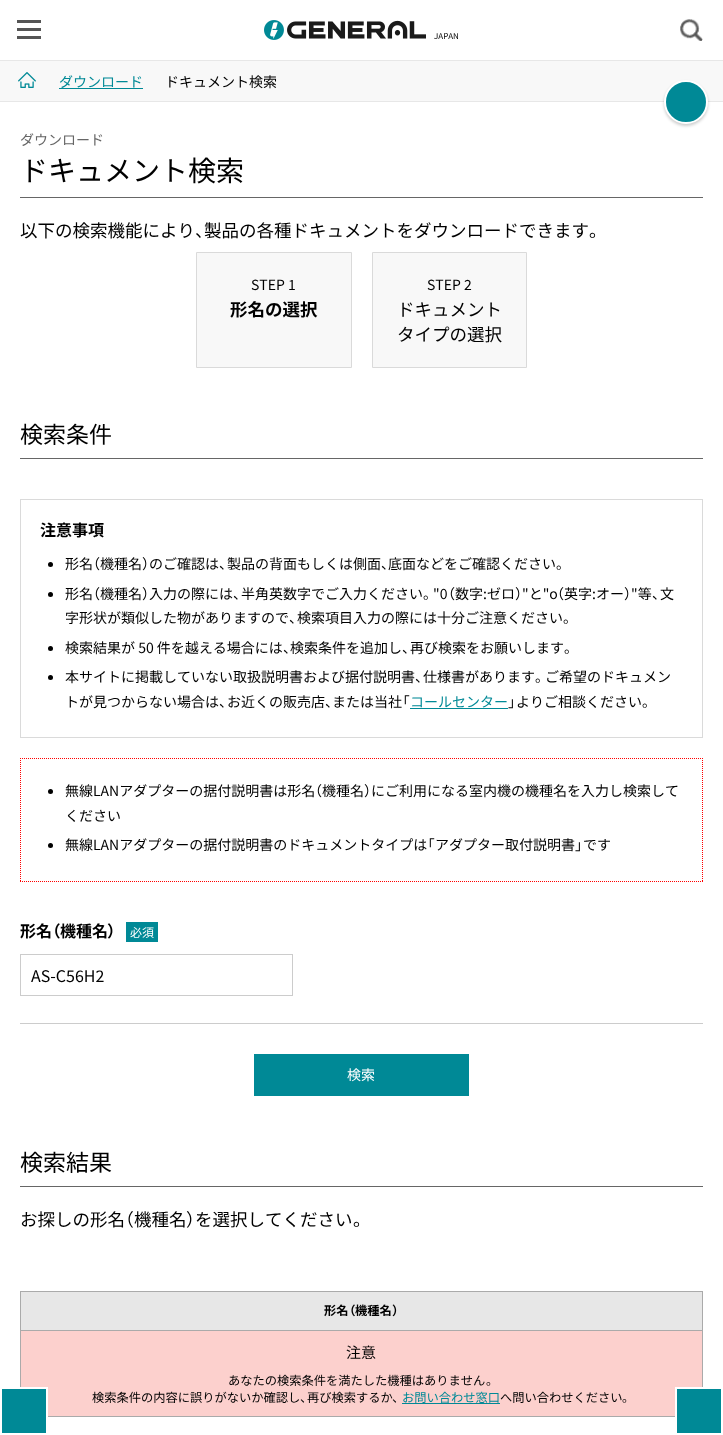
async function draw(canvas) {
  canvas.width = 723;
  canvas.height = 1435;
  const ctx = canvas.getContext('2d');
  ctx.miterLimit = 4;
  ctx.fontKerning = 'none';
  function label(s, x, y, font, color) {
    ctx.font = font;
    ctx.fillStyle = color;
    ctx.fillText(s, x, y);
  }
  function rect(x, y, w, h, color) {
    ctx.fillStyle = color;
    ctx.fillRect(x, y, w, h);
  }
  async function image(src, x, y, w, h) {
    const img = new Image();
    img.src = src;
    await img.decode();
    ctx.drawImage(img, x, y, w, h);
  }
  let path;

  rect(0, 0, 723, 1435, '#fff');
  rect(0, 60, 723, 1, '#e7e7e7');
  rect(17, 28, 24, 3, '#555');
  rect(17, 20, 24, 3, '#555');
  rect(17, 36, 24, 3, '#555');
  await image('assets/img1.png', 264, 20, 162, 20);
  label('JAPAN', 434, 39, '8px Noto Sans JP', '#000');
  await image('assets/img2.png', 680, 19, 23, 22);
  rect(0, 61, 723, 40, '#f8f8f8');
  rect(0, 101, 723, 1, '#e7e7e7');
  await image('assets/img3.png', 18, 72, 18, 16);
  label('ダウンロード', 59, 87, '14px Noto Sans JP', '#008996');
  rect(59, 88, 84, 1, '#008996');
  label('ドキュメント検索', 165, 87, '14px Noto Sans JP', '#000');
  ctx.fillStyle = '#00000033';
  ctx.filter = 'blur(1.5px)';
  ctx.beginPath();
  ctx.roundRect(664, 82, 44, 44, 22);
  ctx.fill();
  ctx.filter = 'none';
  ctx.fillStyle = '#008996';
  ctx.beginPath();
  ctx.arc(686, 102, 21, 0, 2 * Math.PI);
  ctx.fill();
  ctx.strokeStyle = '#fff';
  ctx.lineWidth = 2;
  ctx.stroke();
  rect(20, 197, 683, 1, '#666');
  label('ダウンロード', 20, 145, '14px Noto Sans JP', '#666');
  label('ドキュメント検索', 20, 181, '28px Noto Sans JP', '#000');
  label('以下の検索機能により', 20, 237, '17.5px Noto Sans JP', '#000');
  label('、', 195, 237, '17.5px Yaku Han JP', '#000');
  label('製品の各種ドキュメントをダウンロードできます', 204, 237, '17.5px Noto Sans JP', '#000');
  label('。', 589, 237, '17.5px Yaku Han JP', '#000');
  ctx.fillStyle = '#f8f8f8';
  ctx.beginPath();
  ctx.rect(196.5, 252.5, 155, 115);
  ctx.fill();
  ctx.strokeStyle = '#dadada';
  ctx.lineWidth = 1;
  ctx.stroke();
  label('STEP 1', 251, 290, '14px Noto Sans JP', '#000');
  label('形名の選択', 230, 316, 'bold 17.5px Noto Sans JP', '#000');
  ctx.fillStyle = '#f8f8f8';
  ctx.beginPath();
  ctx.rect(372.5, 252.5, 154, 115);
  ctx.fill();
  ctx.stroke();
  label('STEP 2', 427, 290, '14px Noto Sans JP', '#000');
  label('ドキュメント', 397, 316, '17.5px Noto Sans JP', '#000');
  label('タイプの選択', 397, 341, '17.5px Noto Sans JP', '#000');
  rect(20, 458, 683, 1, '#666');
  label('検索条件', 20, 443, '23px Noto Sans JP', '#000');
  ctx.strokeRect(20.5, 499.5, 682, 238);
  label('注意事項', 40, 536, 'bold 16px Noto Sans JP', '#000');
  ctx.beginPath();
  ctx.arc(50.5, 564.5, 2.5, 0, 2 * Math.PI);
  ctx.fill();
  label('形名', 65, 569, '14px Noto Sans JP', '#000');
  label('（', 93, 569, '14px Yaku Han JP', '#000');
  label('機種名', 100, 569, '14px Noto Sans JP', '#000');
  label('）', 142, 569, '14px Yaku Han JP', '#000');
  label('のご確認は', 149, 569, '14px Noto Sans JP', '#000');
  label('製品の背面もしくは側面', 227, 569, '14px Noto Sans JP', '#000');
  label('底面などをご確認ください', 388, 569, '14px Noto Sans JP', '#000');
  label('、', 219, 569, '14px Yaku Han JP', '#000');
  label('、', 381, 569, '14px Yaku Han JP', '#000');
  label('。', 556, 569, '14px Yaku Han JP', '#000');
  ctx.beginPath();
  ctx.arc(50.5, 594.5, 2.5, 0, 2 * Math.PI);
  ctx.fill();
  label('形名', 65, 599, '14px Noto Sans JP', '#000');
  label('（', 93, 599, '14px Yaku Han JP', '#000');
  label('機種名', 100, 599, '14px Noto Sans JP', '#000');
  label('）', 142, 599, '14px Yaku Han JP', '#000');
  label('入力の際には', 149, 599, '14px Noto Sans JP', '#000');
  label('半角英数字でご入力ください', 241, 599, '14px Noto Sans JP', '#000');
  label('"0', 433, 599, '14px Noto Sans JP', '#000');
  label('（', 448, 599, '14px Yaku Han JP', '#000');
  label('数字:ゼロ', 455, 599, '14px Noto Sans JP', '#000');
  label('）', 515, 599, '14px Yaku Han JP', '#000');
  label('"と"o', 522, 599, '14px Noto Sans JP', '#000');
  label('（', 557, 599, '14px Yaku Han JP', '#000');
  label('英字:オー', 564, 599, '14px Noto Sans JP', '#000');
  label('）', 624, 599, '14px Yaku Han JP', '#000');
  label('"等', 631, 599, '14px Noto Sans JP', '#000');
  label('文', 660, 599, '14px Noto Sans JP', '#000');
  label('、', 233, 599, '14px Yaku Han JP', '#000');
  label('。', 423, 599, '14px Yaku Han JP', '#000');
  label('、', 652, 599, '14px Yaku Han JP', '#000');
  label('字形状が類似した物がありますので', 65, 623, '14px Noto Sans JP', '#000');
  label('、', 289, 623, '14px Yaku Han JP', '#000');
  label('検索項目入力の際には十分ご注意ください', 297, 623, '14px Noto Sans JP', '#000');
  label('。', 563, 623, '14px Yaku Han JP', '#000');
  ctx.beginPath();
  ctx.arc(50.5, 648.5, 2.5, 0, 2 * Math.PI);
  ctx.fill();
  label('検索結果が 50 件を越える場合には', 65, 653, '14px Noto Sans JP', '#000');
  label('検索条件を追加し', 290, 653, '14px Noto Sans JP', '#000');
  label('再び検索をお願いします', 410, 653, '14px Noto Sans JP', '#000');
  label('、', 283, 653, '14px Yaku Han JP', '#000');
  label('、', 402, 653, '14px Yaku Han JP', '#000');
  label('。', 564, 653, '14px Yaku Han JP', '#000');
  ctx.beginPath();
  ctx.arc(50.5, 677.5, 2.5, 0, 2 * Math.PI);
  ctx.fill();
  label('本サイトに掲載していない取扱説明書および据付説明書', 65, 682, '14px Noto Sans JP', '#000');
  label('仕様書があります', 423, 682, '14px Noto Sans JP', '#000');
  label('ご希望のドキュメン', 545, 682, '14px Noto Sans JP', '#000');
  label('、', 415, 682, '14px Yaku Han JP', '#000');
  label('。', 535, 682, '14px Yaku Han JP', '#000');
  label('トが見つからない場合は', 65, 707, '14px Noto Sans JP', '#000');
  label('、', 219, 707, '14px Yaku Han JP', '#000');
  label('お近くの販売店', 227, 707, '14px Noto Sans JP', '#000');
  label('、', 325, 707, '14px Yaku Han JP', '#000');
  label('または当社', 332, 707, '14px Noto Sans JP', '#000');
  label('「', 402, 707, '14px Yaku Han JP', '#000');
  label('コールセンター', 410, 707, '14px Noto Sans JP', '#008996');
  rect(410, 708, 98, 1, '#008996');
  label('」', 508, 707, '14px Yaku Han JP', '#000');
  label('よりご相談ください', 516, 707, '14px Noto Sans JP', '#000');
  label('。', 642, 707, '14px Yaku Han JP', '#000');
  path = new Path2D('M20 758.5H703');
  ctx.strokeStyle = '#f00';
  ctx.setLineDash([1, 1]);
  ctx.stroke(path);
  path = new Path2D('M702.5 758V882');
  ctx.stroke(path);
  path = new Path2D('M20 881.5H703');
  ctx.stroke(path);
  path = new Path2D('M20.5 758V882');
  ctx.stroke(path);
  ctx.beginPath();
  ctx.arc(50.5, 791.5, 2.5, 0, 2 * Math.PI);
  ctx.fill();
  label('無線LANアダプターの据付説明書は形名', 65, 796, '14px Noto Sans JP', '#000');
  label('（', 315, 796, '14px Yaku Han JP', '#000');
  label('機種名', 322, 796, '14px Noto Sans JP', '#000');
  label('）', 364, 796, '14px Yaku Han JP', '#000');
  label('にご利用になる室内機の機種名を入力し検索して', 371, 796, '14px Noto Sans JP', '#000');
  label('ください', 65, 821, '14px Noto Sans JP', '#000');
  ctx.beginPath();
  ctx.arc(50.5, 845.5, 2.5, 0, 2 * Math.PI);
  ctx.fill();
  label('無線LANアダプターの据付説明書のドキュメントタイプは', 65, 850, '14px Noto Sans JP', '#000');
  label('「', 427, 850, '14px Yaku Han JP', '#000');
  label('アダプター取付説明書', 435, 850, '14px Noto Sans JP', '#000');
  label('」', 575, 850, '14px Yaku Han JP', '#000');
  label('です', 583, 850, '14px Noto Sans JP', '#000');
  rect(20, 1023, 683, 1, '#ccc');
  label('形名', 20, 937, 'bold 16px Noto Sans JP', '#000');
  label('（', 52, 937, 'bold 16px Yaku Han JP', '#000');
  label('機種名', 60, 937, 'bold 16px Noto Sans JP', '#000');
  label('）', 107, 937, 'bold 16px Yaku Han JP', '#000');
  rect(126, 922, 32, 20, '#008996');
  label('必須', 130, 937, '12px Noto Sans JP', '#fff');
  ctx.strokeStyle = '#ccc';
  ctx.setLineDash([]);
  ctx.strokeRect(20.5, 954.5, 272, 41);
  label('AS-C56H2', 31, 982, '16px Noto Sans JP', '#000');
  rect(254, 1054, 215, 42, '#008996');
  label('検索', 347, 1080, '14px Noto Sans JP', '#fff');
  rect(20, 1186, 683, 1, '#666');
  label('検索結果', 20, 1171, '23px Noto Sans JP', '#000');
  label('お探しの形名', 20, 1226, '17.5px Noto Sans JP', '#000');
  label('（', 125, 1226, '17.5px Yaku Han JP', '#000');
  label('機種名', 134, 1226, '17.5px Noto Sans JP', '#000');
  label('）', 186, 1226, '17.5px Yaku Han JP', '#000');
  label('を選択してください', 195, 1226, '17.5px Noto Sans JP', '#000');
  label('。', 353, 1226, '17.5px Yaku Han JP', '#000');
  rect(21, 1292, 681, 38, '#e7e7e7');
  rect(20, 1291, 683, 1, '#aaa');
  rect(20, 1330, 683, 1, '#aaa');
  rect(702, 1330, 1, 57, '#aaa');
  rect(702, 1291, 1, 40, '#aaa');
  rect(20, 1330, 1, 57, '#aaa');
  rect(20, 1291, 1, 40, '#aaa');
  label('形名', 324, 1315, 'bold 12.25px Noto Sans JP', '#000');
  label('（', 349, 1315, 'bold 12.25px Yaku Han JP', '#000');
  label('機種名', 355, 1315, 'bold 12.25px Noto Sans JP', '#000');
  label('）', 392, 1315, 'bold 12.25px Yaku Han JP', '#000');
  rect(21, 1331, 681, 85, '#fcd0cd');
  rect(48, 1416, 627, 1, '#aaa');
  label('注意', 346, 1358, '15px Noto Sans JP', '#000');
  label('あなたの検索条件を満たした機種はありません', 228, 1385, '12.25px Noto Sans JP', '#000');
  label('。', 486, 1385, '12.25px Yaku Han JP', '#000');
  label('検索条件の内容に誤りがないか確認し', 92, 1402, '12.25px Noto Sans JP', '#000');
  label('、', 300, 1402, '12.25px Yaku Han JP', '#000');
  label('再び検索するか', 307, 1402, '12.25px Noto Sans JP', '#000');
  label('、', 392, 1402, '12.25px Yaku Han JP', '#000');
  label('お問い合わせ窓口', 402, 1402, '12.25px Noto Sans JP', '#008996');
  rect(402, 1403, 98, 1, '#008996');
  label('へ問い合わせください', 500, 1402, '12.25px Noto Sans JP', '#000');
  label('。', 622, 1402, '12.25px Yaku Han JP', '#000');
  ctx.fillStyle = '#008996';
  ctx.beginPath();
  ctx.rect(1, 1388, 46, 46);
  ctx.fill();
  ctx.strokeStyle = '#fff';
  ctx.lineWidth = 2;
  ctx.stroke();
  ctx.beginPath();
  ctx.rect(676, 1388, 46, 46);
  ctx.fill();
  ctx.stroke();
}

draw(document.querySelector('canvas'));
